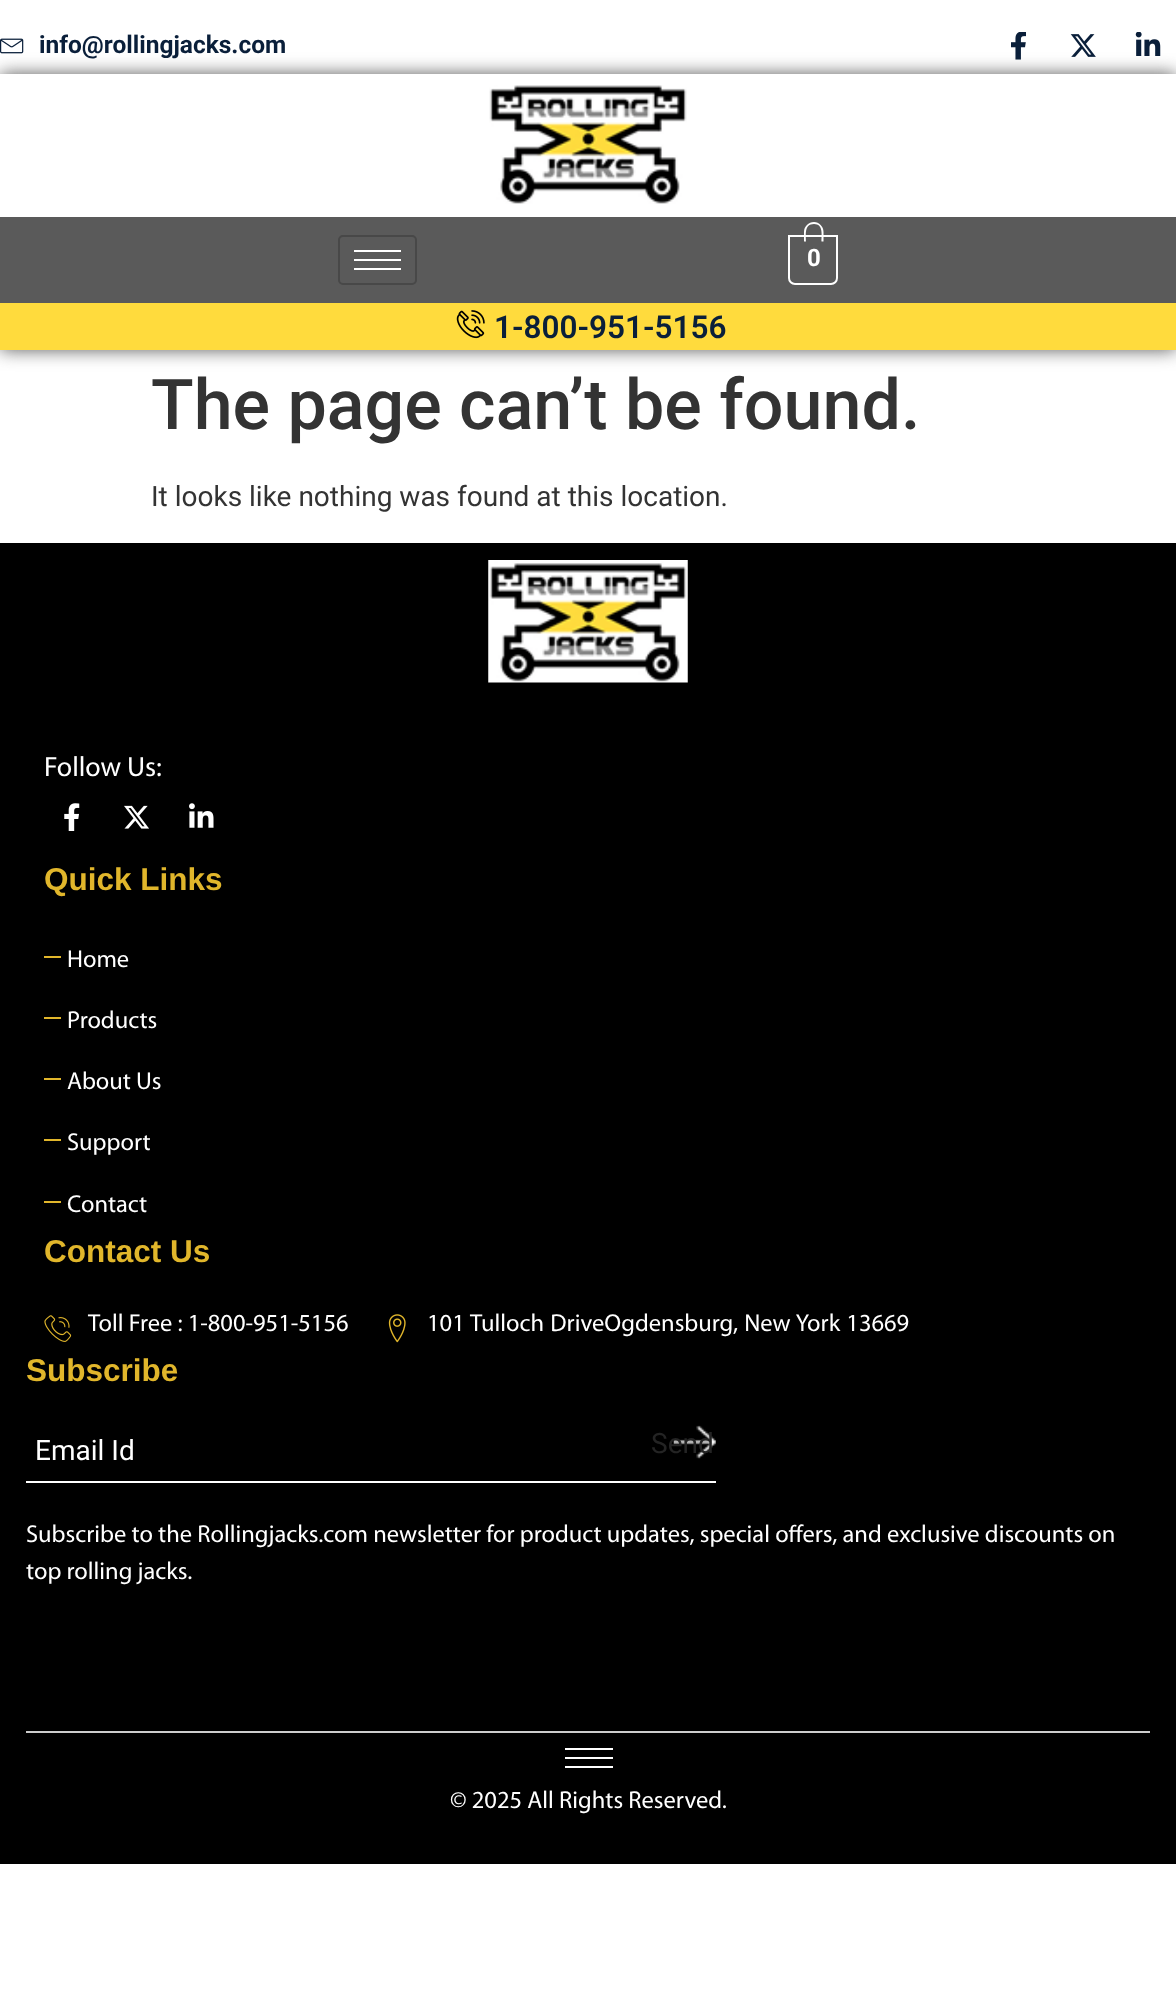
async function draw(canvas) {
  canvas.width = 1176;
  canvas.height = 2004;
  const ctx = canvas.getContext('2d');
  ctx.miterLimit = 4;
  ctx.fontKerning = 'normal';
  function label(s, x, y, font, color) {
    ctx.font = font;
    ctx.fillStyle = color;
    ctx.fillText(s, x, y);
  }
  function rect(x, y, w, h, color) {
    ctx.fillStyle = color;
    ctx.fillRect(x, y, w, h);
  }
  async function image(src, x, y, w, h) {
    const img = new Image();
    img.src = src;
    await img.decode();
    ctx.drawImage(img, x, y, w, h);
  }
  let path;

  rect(0, 0, 1176, 2004, '#fff');
  await image('assets/img1.png', 0, 38, 24, 16);
  label('info@rollingjacks.com', 39, 53, 'bold 24.5px Roboto', '#0a1f3a');
  await image('assets/img2.png', 1011, 32, 15, 28);
  await image('assets/img3.png', 1070, 34, 26, 23);
  await image('assets/img4.png', 1135, 32, 26, 24);
  ctx.save();
  path = new Path2D('M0 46H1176V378H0ZM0 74H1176V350H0Z');
  ctx.clip(path, 'evenodd');
  ctx.fillStyle = '#5a5a5a';
  ctx.filter = 'blur(9px)';
  ctx.beginPath();
  ctx.rect(0, 74, 1176, 276);
  ctx.fill();
  ctx.filter = 'none';
  ctx.restore();
  await image('assets/img5.png', 489, 85, 198, 119);
  rect(0, 217, 1176, 86, '#5a5a5a');
  ctx.beginPath();
  ctx.roundRect(339, 236, 77, 48, 4);
  ctx.strokeStyle = '#484848';
  ctx.lineWidth = 2;
  ctx.stroke();
  rect(354, 250, 47, 2, '#fff');
  rect(354, 259, 47, 2, '#fff');
  rect(354, 268, 47, 2, '#fff');
  ctx.beginPath();
  ctx.roundRect(789, 236, 48, 48, [0, 0, 6, 6]);
  ctx.strokeStyle = '#fff';
  ctx.stroke();
  path = new Path2D('M814 222C819 222 823.5 226.5 823.5 232V241.5H804V232C804 226.5 808.5 222 814 222ZM814 224C823.5 224 821.5 235 821.5 241.5H806C806 235 804 224 814 224Z');
  ctx.fill(path, 'evenodd');
  label('0', 807, 266, 'bold 24px Roboto', '#fff');
  rect(0, 303, 1176, 47, '#ffdb3d');
  await image('assets/img6.png', 456, 310, 29, 29);
  label('1-800-951-5156', 494, 338, '600 31.5px Roboto', '#0a1f3a');
  label('The page can’t be found.', 151, 429, '500 70px Roboto', '#333');
  label('It looks like nothing was found at this location.', 151, 506, '28px Roboto', '#333');
  rect(0, 543, 1176, 1321, '#000');
  await image('assets/img7.png', 488, 560, 200, 123);
  label('Follow Us:', 44, 776, '28px MYRIAD', '#fff');
  await image('assets/img8.png', 64, 803, 16, 28);
  await image('assets/img9.png', 124, 805, 25, 24);
  await image('assets/img10.png', 189, 803, 25, 25);
  label('Quick Links', 44, 890, 'bold 31.5px Liberation Sans', '#e1b62b');
  rect(44, 956, 17, 2, '#e1b62b');
  label('Home', 67, 967, '24.5px MYRIAD', '#fff');
  rect(44, 1017, 17, 2, '#e1b62b');
  label('Products', 67, 1028, '24.5px MYRIAD', '#fff');
  rect(44, 1078, 17, 2, '#e1b62b');
  label('About Us', 67, 1089, '24.5px MYRIAD', '#fff');
  rect(44, 1139, 17, 2, '#e1b62b');
  label('Support', 67, 1150, '24.5px MYRIAD', '#fff');
  rect(44, 1201, 17, 2, '#e1b62b');
  label('Contact', 67, 1212, '24.5px MYRIAD', '#fff');
  label('Contact Us', 44, 1262, 'bold 31.5px Liberation Sans', '#e1b62b');
  await image('assets/img11.png', 44, 1315, 28, 27);
  label('Toll Free : 1-800-951-5156', 88, 1331, '24.5px MYRIAD', '#fff');
  await image('assets/img12.png', 388, 1314, 18, 29);
  ctx.wordSpacing = '1px';
  label('101 Tulloch DriveOgdensburg, New York 13669', 427, 1331, '24.5px MYRIAD', '#fff');
  ctx.wordSpacing = '0px';
  label('Subscribe', 26, 1381, 'bold 31.5px Liberation Sans', '#e1b62b');
  await image('assets/img13.png', 673, 1425, 43, 34);
  rect(26, 1481, 690, 2, '#fff');
  label('Email Id', 35, 1460, '28px Roboto', '#fff');
  label('Send', 651, 1453, '28px Roboto', '#242424');
  label('Subscribe to the Rollingjacks.com newsletter for product updates, special offers, and exclusive discounts on', 26, 1542, '24.5px MYRIAD', '#fff');
  label('top rolling jacks.', 26, 1579, '24.5px MYRIAD', '#fff');
  rect(26, 1731, 1124, 2, '#ccc');
  rect(565, 1748, 48, 2, '#fff');
  rect(565, 1757, 48, 2, '#fff');
  rect(565, 1766, 48, 2, '#fff');
  label('© 2025 All Rights Reserved.', 450, 1808, '24.5px MYRIAD', '#fff');
}

draw(document.querySelector('canvas'));
